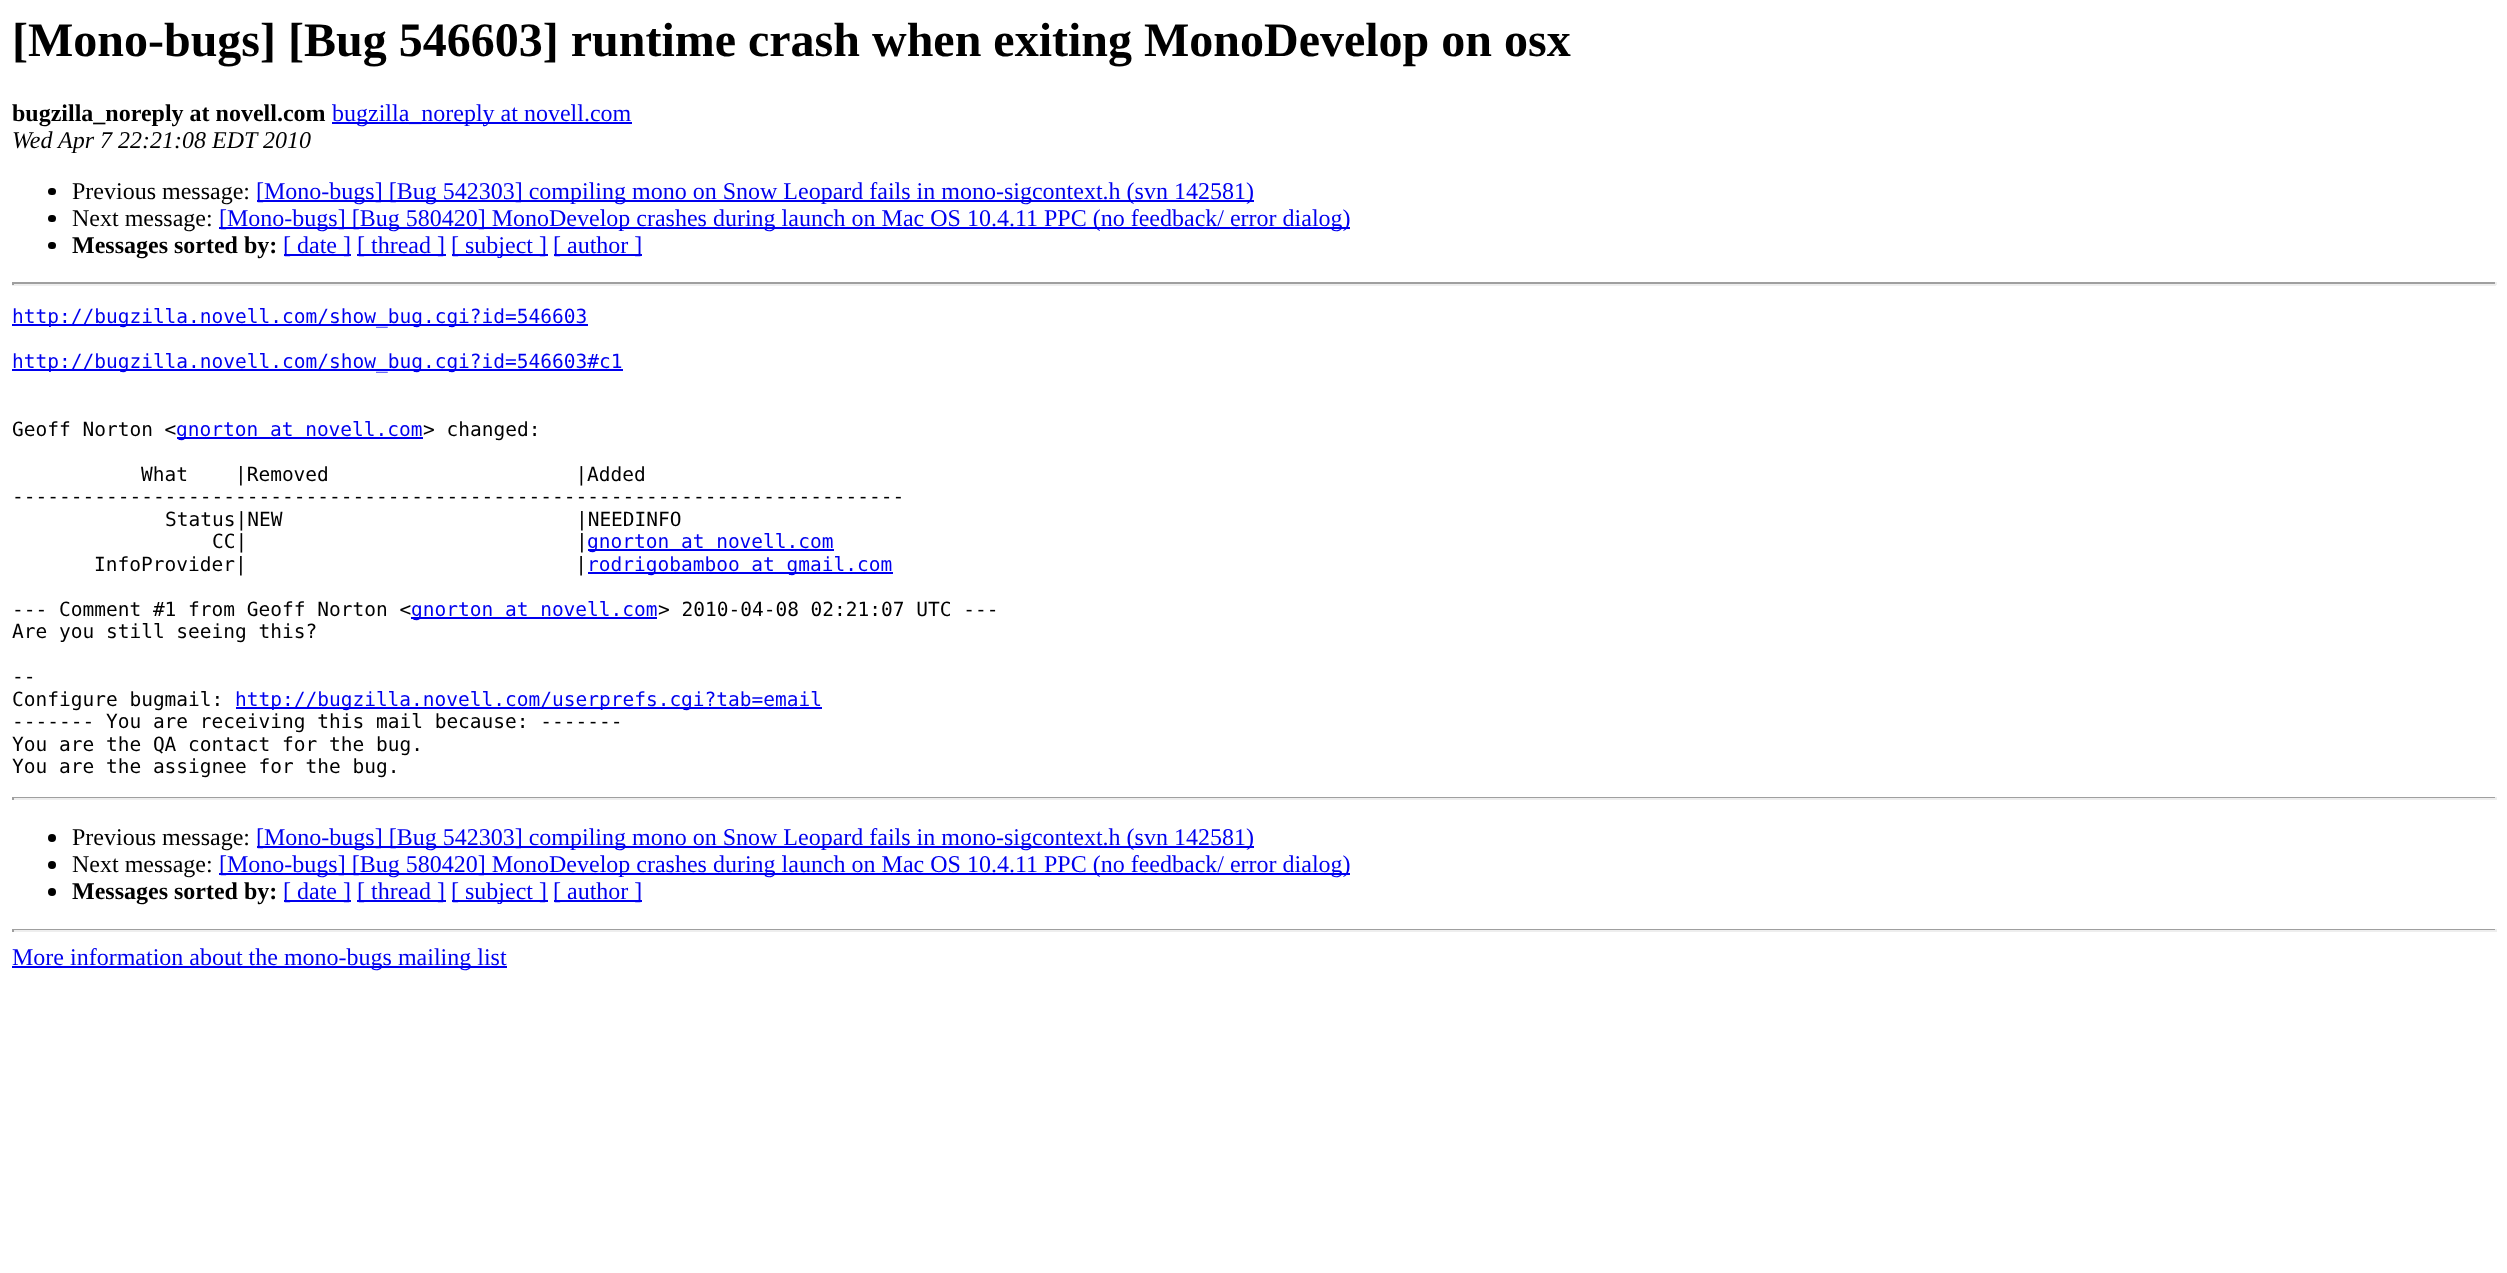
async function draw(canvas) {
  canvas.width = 2507;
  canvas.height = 1273;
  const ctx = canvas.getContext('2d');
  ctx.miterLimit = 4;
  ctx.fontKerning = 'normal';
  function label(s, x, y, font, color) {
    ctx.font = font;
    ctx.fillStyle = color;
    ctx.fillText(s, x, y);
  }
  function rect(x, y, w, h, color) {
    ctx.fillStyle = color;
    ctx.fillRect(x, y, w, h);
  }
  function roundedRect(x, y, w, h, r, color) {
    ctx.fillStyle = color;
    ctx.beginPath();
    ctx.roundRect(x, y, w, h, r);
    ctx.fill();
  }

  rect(0, 0, 2507, 1273, '#fff');
  label('[Mono-bugs] [Bug 546603] runtime crash when exiting MonoDevelop on osx', 12, 56, 'bold 48px Liberation Serif', '#000');
  label('bugzilla_noreply at novell.com', 12, 121, 'bold 24px Liberation Serif', '#000');
  rect(332, 122, 300, 2, '#00e');
  label('bugzilla_noreply at novell.com', 332, 121, '24px Liberation Serif', '#00e');
  label('Wed Apr 7 22:21:08 EDT 2010', 12, 148, 'italic 24px Liberation Serif', '#000');
  roundedRect(48, 188, 8, 7, 3.5, '#000');
  label('Previous message:', 72, 199, '24px Liberation Serif', '#000');
  rect(257, 200, 997, 2, '#00e');
  label('[Mono-bugs] [Bug 542303] compiling mono on Snow Leopard fails in mono-sigcontext.h (svn 142581)', 256, 199, '24px Liberation Serif', '#00e');
  roundedRect(48, 215, 8, 7, 3.5, '#000');
  label('Next message:', 72, 226, '24px Liberation Serif', '#000');
  rect(219, 227, 1131, 2, '#00e');
  label('[Mono-bugs] [Bug 580420] MonoDevelop crashes during launch on Mac OS 10.4.11 PPC (no feedback/ error dialog)', 219, 226, '24px Liberation Serif', '#00e');
  roundedRect(48, 242, 8, 7, 3.5, '#000');
  label('Messages sorted by:', 72, 253, 'bold 24px Liberation Serif', '#000');
  rect(284, 254, 67, 2, '#00e');
  label('[ date ]', 283, 253, '24px Liberation Serif', '#00e');
  rect(357, 254, 89, 2, '#00e');
  label('[ thread ]', 357, 253, '24px Liberation Serif', '#00e');
  rect(452, 254, 96, 2, '#00e');
  label('[ subject ]', 451, 253, '24px Liberation Serif', '#00e');
  rect(554, 254, 88, 2, '#00e');
  label('[ author ]', 553, 253, '24px Liberation Serif', '#00e');
  rect(12, 282, 2484, 2, '#9f9f9f');
  rect(2495, 282, 2, 3, '#eee');
  rect(12, 284, 2484, 2, '#eee');
  rect(12, 282, 2, 3, '#9f9f9f');
  rect(12, 324, 576, 2, '#00e');
  label('http://bugzilla.novell.com/show_bug.cgi?id=546603', 12, 323, '19.5px DejaVu Sans Mono', '#00e');
  rect(12, 369, 611, 2, '#00e');
  label('http://bugzilla.novell.com/show_bug.cgi?id=546603#c1', 12, 368, '19.5px DejaVu Sans Mono', '#00e');
  label('Geoff Norton <', 12, 436, '19.5px DejaVu Sans Mono', '#000');
  rect(177, 437, 246, 2, '#00e');
  label('gnorton at novell.com', 176, 436, '19.5px DejaVu Sans Mono', '#00e');
  label('> changed:', 423, 436, '19.5px DejaVu Sans Mono', '#000');
  label('What    |Removed                     |Added', 141, 481, '19.5px DejaVu Sans Mono', '#000');
  label('----------------------------------------------------------------------------', 12, 503, '19.5px DejaVu Sans Mono', '#000');
  label('Status|NEW                         |NEEDINFO', 165, 526, '19.5px DejaVu Sans Mono', '#000');
  label('CC|                            |', 212, 548, '19.5px DejaVu Sans Mono', '#000');
  rect(588, 549, 246, 2, '#00e');
  label('gnorton at novell.com', 587, 548, '19.5px DejaVu Sans Mono', '#00e');
  label('InfoProvider|                            |', 94, 571, '19.5px DejaVu Sans Mono', '#000');
  rect(588, 572, 305, 2, '#00e');
  label('rodrigobamboo at gmail.com', 587, 571, '19.5px DejaVu Sans Mono', '#00e');
  label('--- Comment #1 from Geoff Norton <', 12, 616, '19.5px DejaVu Sans Mono', '#000');
  rect(411, 617, 246, 2, '#00e');
  label('gnorton at novell.com', 411, 616, '19.5px DejaVu Sans Mono', '#00e');
  label('> 2010-04-08 02:21:07 UTC ---', 658, 616, '19.5px DejaVu Sans Mono', '#000');
  label('Are you still seeing this?', 12, 638, '19.5px DejaVu Sans Mono', '#000');
  label('--', 12, 683, '19.5px DejaVu Sans Mono', '#000');
  label('Configure bugmail:', 12, 706, '19.5px DejaVu Sans Mono', '#000');
  rect(236, 707, 586, 2, '#00e');
  label('http://bugzilla.novell.com/userprefs.cgi?tab=email', 235, 706, '19.5px DejaVu Sans Mono', '#00e');
  label('------- You are receiving this mail because: -------', 12, 728, '19.5px DejaVu Sans Mono', '#000');
  label('You are the QA contact for the bug.', 12, 751, '19.5px DejaVu Sans Mono', '#000');
  label('You are the assignee for the bug.', 12, 773, '19.5px DejaVu Sans Mono', '#000');
  rect(12, 797, 2484, 1, '#9f9f9f');
  rect(2495, 797, 2, 3, '#eee');
  rect(12, 798, 2484, 2, '#eee');
  rect(12, 797, 2, 3, '#9f9f9f');
  ctx.fillStyle = '#000';
  ctx.beginPath();
  ctx.arc(52, 838, 4, 0, 2 * Math.PI);
  ctx.fill();
  label('Previous message:', 72, 845, '24px Liberation Serif', '#000');
  rect(257, 846, 997, 2, '#00e');
  label('[Mono-bugs] [Bug 542303] compiling mono on Snow Leopard fails in mono-sigcontext.h (svn 142581)', 256, 845, '24px Liberation Serif', '#00e');
  ctx.fillStyle = '#000';
  ctx.beginPath();
  ctx.arc(52, 865, 4, 0, 2 * Math.PI);
  ctx.fill();
  label('Next message:', 72, 872, '24px Liberation Serif', '#000');
  rect(219, 873, 1131, 2, '#00e');
  label('[Mono-bugs] [Bug 580420] MonoDevelop crashes during launch on Mac OS 10.4.11 PPC (no feedback/ error dialog)', 219, 872, '24px Liberation Serif', '#00e');
  ctx.fillStyle = '#000';
  ctx.beginPath();
  ctx.arc(52, 892, 4, 0, 2 * Math.PI);
  ctx.fill();
  label('Messages sorted by:', 72, 899, 'bold 24px Liberation Serif', '#000');
  rect(284, 900, 67, 2, '#00e');
  label('[ date ]', 283, 899, '24px Liberation Serif', '#00e');
  rect(357, 900, 89, 2, '#00e');
  label('[ thread ]', 357, 899, '24px Liberation Serif', '#00e');
  rect(452, 900, 96, 2, '#00e');
  label('[ subject ]', 451, 899, '24px Liberation Serif', '#00e');
  rect(554, 900, 88, 2, '#00e');
  label('[ author ]', 553, 899, '24px Liberation Serif', '#00e');
  rect(12, 929, 2484, 1, '#9f9f9f');
  rect(2495, 929, 2, 3, '#eee');
  rect(12, 930, 2484, 2, '#eee');
  rect(12, 929, 2, 3, '#9f9f9f');
  rect(12, 966, 495, 2, '#00e');
  label('More information about the mono-bugs mailing list', 12, 965, '24px Liberation Serif', '#00e');
}

draw(document.querySelector('canvas'));
